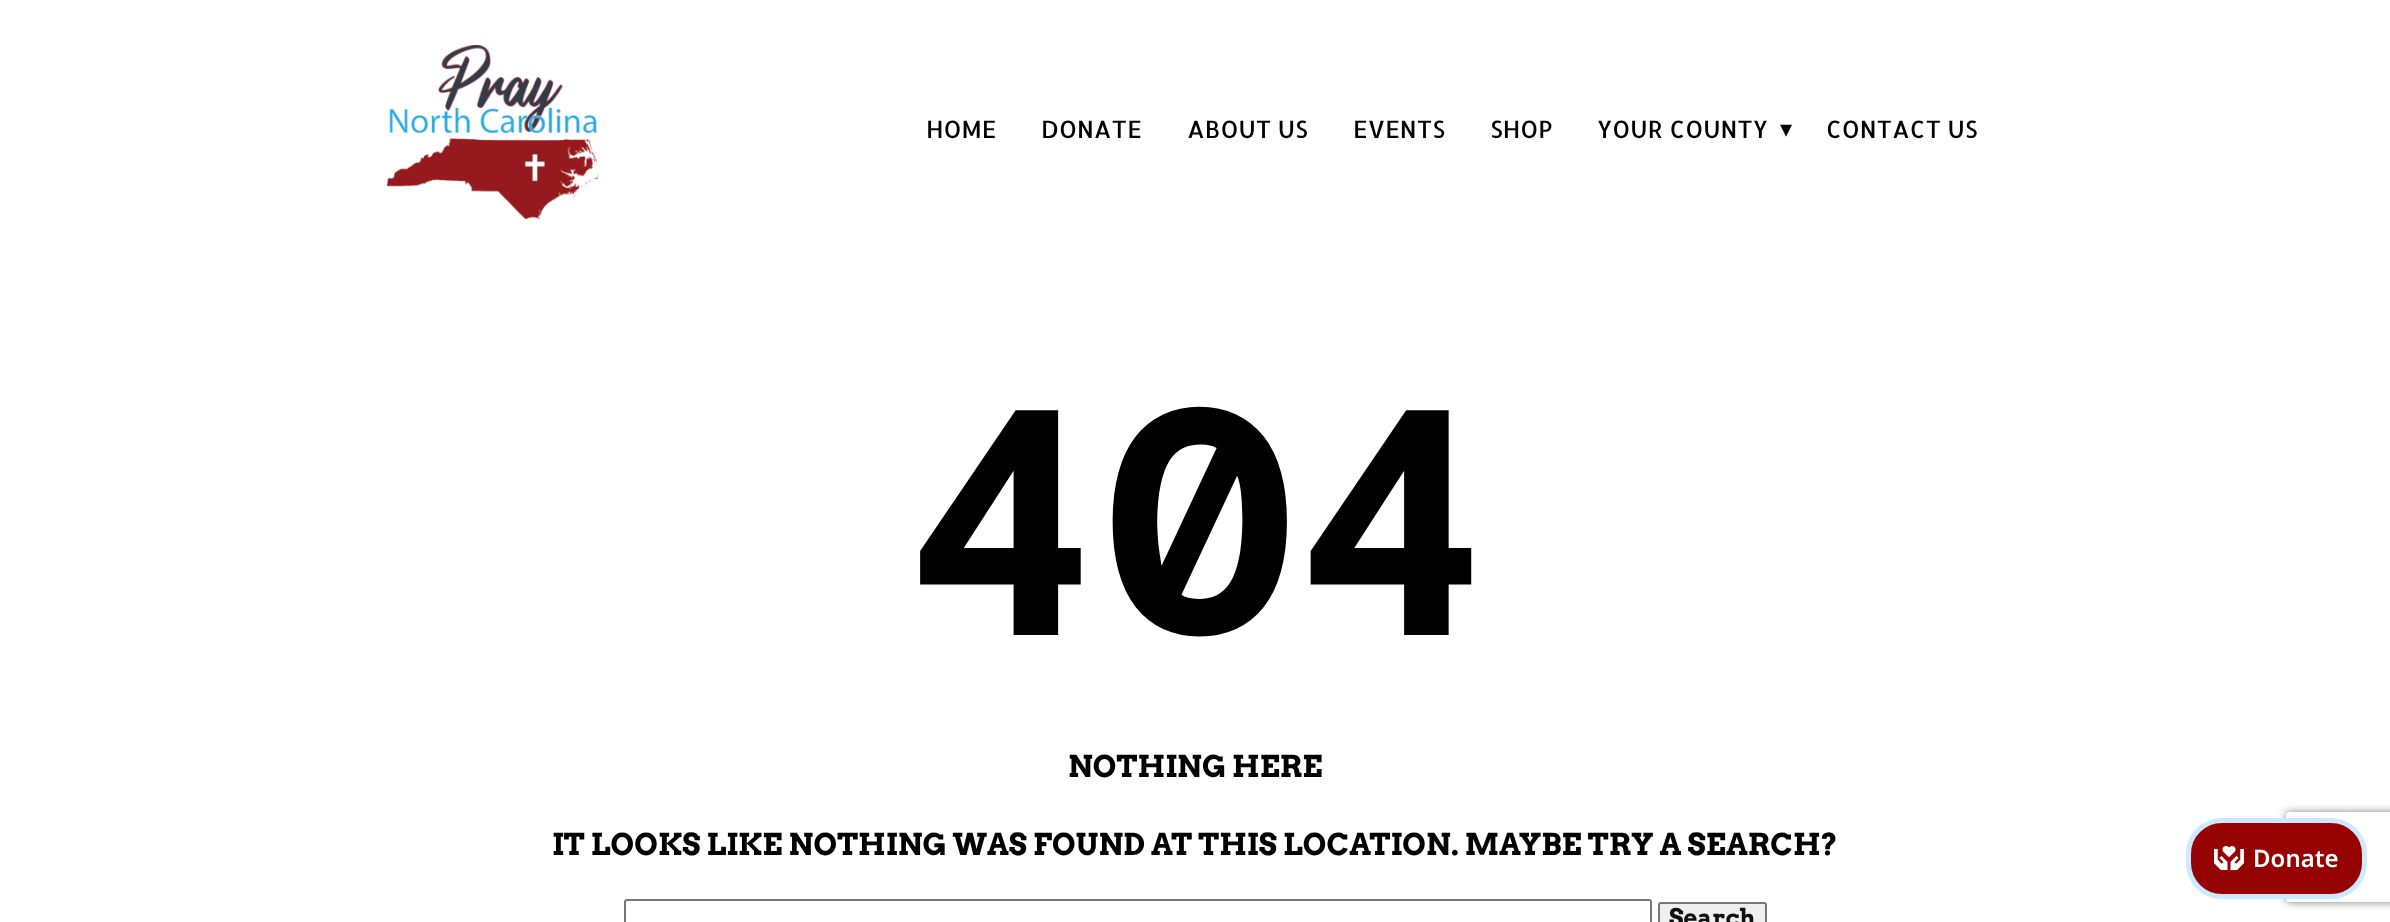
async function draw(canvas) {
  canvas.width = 2390;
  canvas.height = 922;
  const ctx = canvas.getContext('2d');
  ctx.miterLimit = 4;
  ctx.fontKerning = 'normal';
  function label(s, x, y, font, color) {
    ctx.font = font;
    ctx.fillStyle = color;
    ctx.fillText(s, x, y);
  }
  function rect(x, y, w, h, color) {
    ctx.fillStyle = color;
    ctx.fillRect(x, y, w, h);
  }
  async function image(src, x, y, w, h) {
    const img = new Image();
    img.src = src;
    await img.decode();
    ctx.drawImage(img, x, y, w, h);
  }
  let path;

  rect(0, 0, 2390, 922, '#fff');
  await image('assets/img1.png', 387, 45, 212, 174);
  label('HOME', 926, 138, '24px Allerta', '#000');
  label('DONATE', 1041, 138, '24px Allerta', '#000');
  label('ABOUT US', 1187, 138, '24px Allerta', '#000');
  label('EVENTS', 1353, 138, '24px Allerta', '#000');
  label('SHOP', 1490, 138, '24px Allerta', '#000');
  label('YOUR COUNTY', 1597, 138, '24px Allerta', '#000');
  label('▾', 1780, 137, '24px DejaVu Sans', '#000');
  label('CONTACT US', 1826, 138, '24px Allerta', '#000');
  label('404', 909, 635, 'bold 300px Allerta', '#000');
  label('NOTHING HERE', 1068, 777, 'bold 30px Arvo', '#000');
  label('IT LOOKS LIKE NOTHING WAS FOUND AT THIS LOCATION. MAYBE TRY A SEARCH?', 552, 855, 'bold 30px Arvo', '#000');
  ctx.beginPath();
  ctx.roundRect(625, 900, 1026, 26, 2);
  ctx.strokeStyle = '#767676';
  ctx.lineWidth = 2;
  ctx.stroke();
  ctx.fillStyle = '#efefef';
  ctx.beginPath();
  ctx.roundRect(1659, 903, 107, 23, 2);
  ctx.fill();
  ctx.stroke();
  label('Search', 1669, 926, 'bold 24px Arvo', '#111');
  ctx.save();
  path = new Path2D('M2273 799H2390V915H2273ZM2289 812H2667C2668.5 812 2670 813.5 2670 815V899C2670 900.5 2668.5 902 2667 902H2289C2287.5 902 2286 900.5 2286 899V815C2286 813.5 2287.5 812 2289 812Z');
  ctx.clip(path, 'evenodd');
  ctx.fillStyle = '#808080';
  ctx.filter = 'blur(4px)';
  ctx.beginPath();
  ctx.roundRect(2286, 812, 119, 90, 3);
  ctx.fill();
  ctx.filter = 'none';
  ctx.restore();
  ctx.fillStyle = '#960303';
  ctx.beginPath();
  ctx.roundRect(2188.5, 820.5, 176, 76, 33.5);
  ctx.fill();
  ctx.strokeStyle = '#cbe9ff';
  ctx.lineWidth = 5;
  ctx.stroke();
  await image('assets/img2.png', 2214, 846, 30, 25);
  label('Donate', 2253, 867, '600 24px Noto Sans', '#fff');
}

draw(document.querySelector('canvas'));
